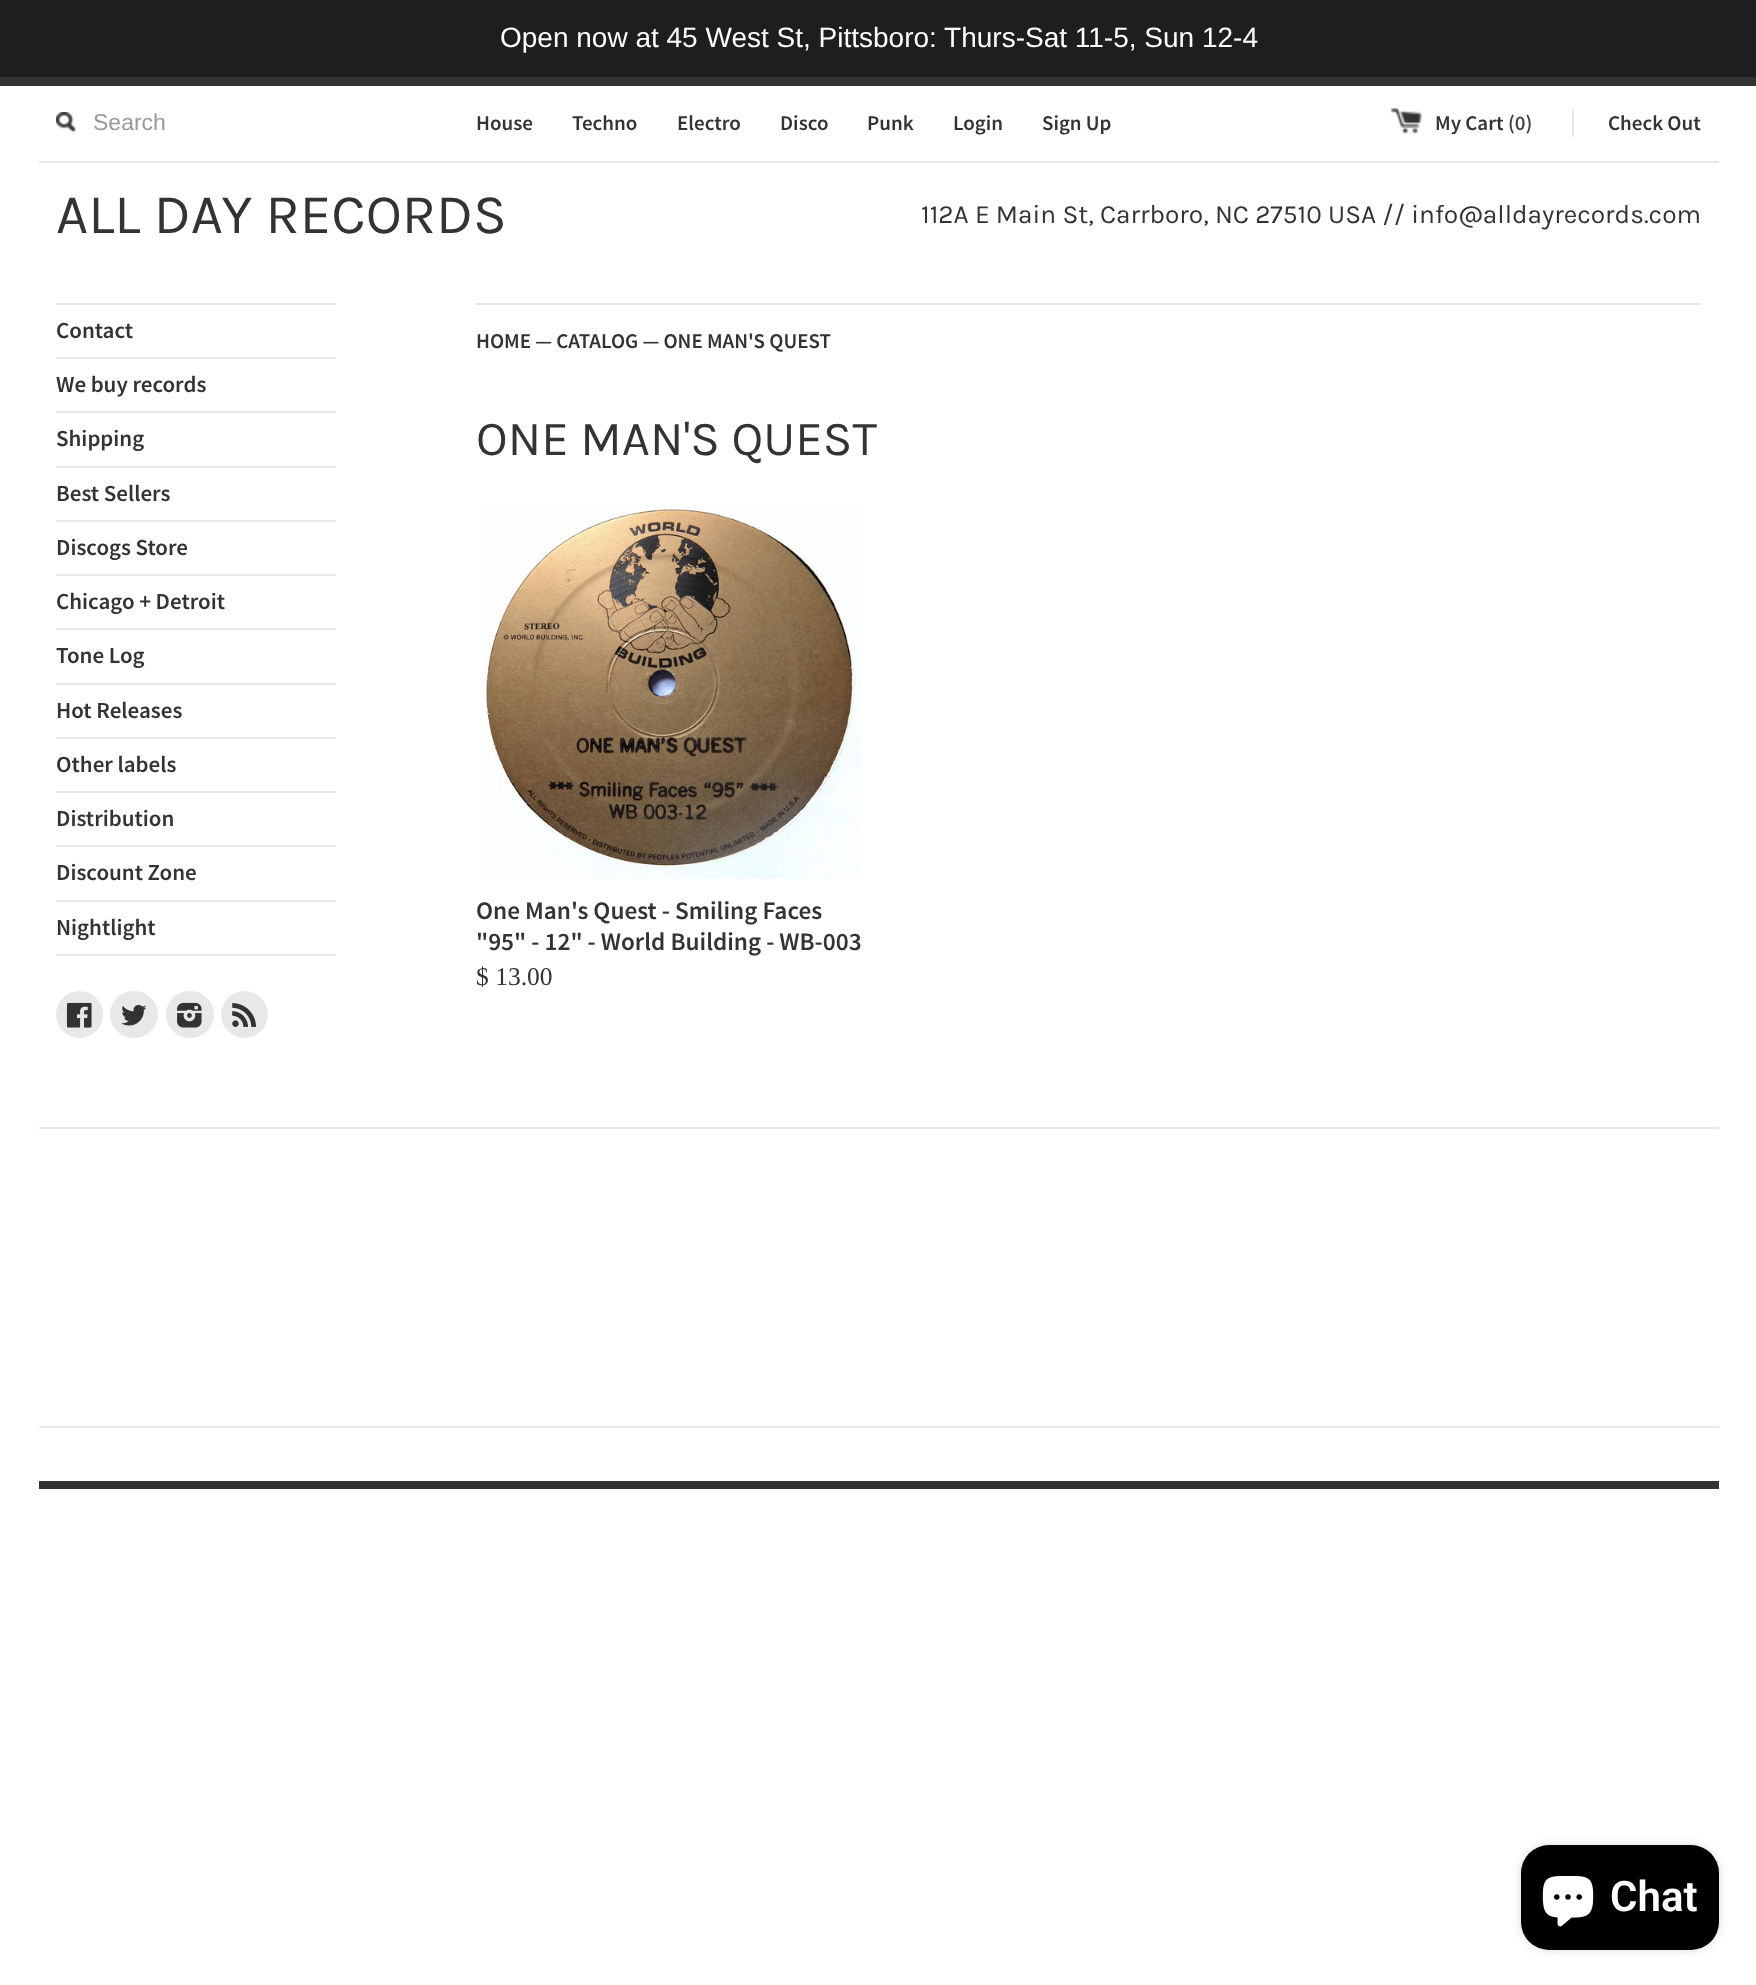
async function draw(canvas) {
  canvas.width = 1756;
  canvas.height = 1985;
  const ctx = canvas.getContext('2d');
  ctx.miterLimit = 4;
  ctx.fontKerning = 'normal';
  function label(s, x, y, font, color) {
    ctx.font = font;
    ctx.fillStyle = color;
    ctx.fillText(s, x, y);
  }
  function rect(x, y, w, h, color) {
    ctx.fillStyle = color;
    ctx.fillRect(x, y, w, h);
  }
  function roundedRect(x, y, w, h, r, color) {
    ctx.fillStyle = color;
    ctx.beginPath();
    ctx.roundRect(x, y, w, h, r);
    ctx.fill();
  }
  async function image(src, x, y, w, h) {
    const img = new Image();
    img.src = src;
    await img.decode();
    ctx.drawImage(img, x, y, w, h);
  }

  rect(0, 0, 1756, 1985, '#fff');
  rect(0, 0, 1756, 77, '#1e1e20');
  label('Open now at 45 West St, Pittsboro: Thurs-Sat 11-5, Sun 12-4', 500, 47, '28px Liberation Sans', '#fff');
  rect(0, 77, 1756, 9, '#333');
  rect(39, 161, 1680, 2, '#e8e8e8');
  await image('assets/img1.png', 56, 112, 20, 20);
  label('Search', 93, 130, '23px Liberation Sans', '#999');
  label('House', 476, 130, '600 21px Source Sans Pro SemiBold', '#333');
  label('Techno', 572, 130, '600 21px Source Sans Pro SemiBold', '#333');
  label('Electro', 677, 130, '600 21px Source Sans Pro SemiBold', '#333');
  label('Disco', 780, 130, '600 21px Source Sans Pro SemiBold', '#333');
  label('Punk', 867, 130, '600 21px Source Sans Pro SemiBold', '#333');
  label('Login', 953, 130, '600 21px Source Sans Pro SemiBold', '#333');
  label('Sign Up', 1042, 130, '600 21px Source Sans Pro SemiBold', '#333');
  await image('assets/img2.png', 1391, 108, 31, 26);
  label('My Cart', 1435, 130, '600 21px Source Sans Pro SemiBold', '#333');
  label('(0)', 1508, 130, '600 21px Source Sans Pro SemiBold', '#444');
  label('Check Out', 1608, 130, '600 21px Source Sans Pro SemiBold', '#333');
  rect(1572, 109, 2, 28, '#e8e8e8');
  label('ALL DAY RECORDS', 56, 233, '56px Karla', '#333');
  label('112A E Main St, Carrboro, NC 27510 USA // info@alldayrecords.com', 921, 223, '26.25px Karla', '#333');
  rect(56, 954, 280, 2, '#e8e8e8');
  rect(56, 303, 280, 2, '#e8e8e8');
  label('Contact', 56, 338, '600 23px Source Sans Pro SemiBold', '#333');
  rect(56, 357, 280, 2, '#e8e8e8');
  label('We buy records', 56, 392, '600 23px Source Sans Pro SemiBold', '#333');
  rect(56, 411, 280, 2, '#e8e8e8');
  label('Shipping', 56, 446, '600 23px Source Sans Pro SemiBold', '#333');
  rect(56, 466, 280, 2, '#e8e8e8');
  label('Best Sellers', 56, 501, '600 23px Source Sans Pro SemiBold', '#333');
  rect(56, 520, 280, 2, '#e8e8e8');
  label('Discogs Store', 56, 555, '600 23px Source Sans Pro SemiBold', '#333');
  rect(56, 574, 280, 2, '#e8e8e8');
  label('Chicago + Detroit', 56, 609, '600 23px Source Sans Pro SemiBold', '#333');
  rect(56, 628, 280, 2, '#e8e8e8');
  label('Tone Log', 56, 663, '600 23px Source Sans Pro SemiBold', '#333');
  rect(56, 683, 280, 2, '#e8e8e8');
  label('Hot Releases', 56, 718, '600 23px Source Sans Pro SemiBold', '#333');
  rect(56, 737, 280, 2, '#e8e8e8');
  label('Other labels', 56, 772, '600 23px Source Sans Pro SemiBold', '#333');
  rect(56, 791, 280, 2, '#e8e8e8');
  label('Distribution', 56, 826, '600 23px Source Sans Pro SemiBold', '#333');
  rect(56, 845, 280, 2, '#e8e8e8');
  label('Discount Zone', 56, 880, '600 23px Source Sans Pro SemiBold', '#333');
  rect(56, 900, 280, 2, '#e8e8e8');
  label('Nightlight', 56, 935, '600 23px Source Sans Pro SemiBold', '#333');
  ctx.fillStyle = '#e8e8e8';
  ctx.beginPath();
  ctx.arc(79.5, 1014.5, 23.5, 0, 2 * Math.PI);
  ctx.fill();
  await image('assets/img3.png', 66, 1002, 26, 26);
  roundedRect(110, 991, 48, 47, 23.5, '#e8e8e8');
  await image('assets/img4.png', 121, 1004, 26, 22);
  roundedRect(166, 991, 48, 47, 23.5, '#e8e8e8');
  await image('assets/img5.png', 177, 1002, 25, 26);
  ctx.beginPath();
  ctx.arc(244.5, 1014.5, 23.5, 0, 2 * Math.PI);
  ctx.fill();
  await image('assets/img6.png', 232, 1003, 24, 24);
  rect(476, 303, 1225, 2, '#e8e8e8');
  label('HOME — CATALOG — ONE MAN\'S QUEST', 476, 348, '600 21px Source Sans Pro SemiBold', '#333');
  label('ONE MAN\'S QUEST', 476, 455, '49px Karla', '#333');
  await image('assets/img7.png', 483, 506, 378, 373);
  label('One Man\'s Quest - Smiling Faces', 476, 919, '600 25.25px Source Sans Pro SemiBold', '#333');
  label('"95" - 12" - World Building - WB-003', 476, 950, '600 25.25px Source Sans Pro SemiBold', '#333');
  label('$ 13.00', 476, 985, '25.5px Liberation Serif', '#333');
  rect(39, 1481, 1680, 8, '#333');
  rect(39, 1127, 1680, 2, '#e8e8e8');
  rect(39, 1426, 1680, 2, '#e8e8e8');
  ctx.fillStyle = '#00000026';
  ctx.filter = 'blur(4.5px)';
  ctx.beginPath();
  ctx.roundRect(1521, 1845, 198, 105, 28);
  ctx.fill();
  ctx.filter = 'none';
  roundedRect(1521, 1845, 198, 105, 28, '#000');
  await image('assets/img8.png', 1542, 1876, 52, 51);
  label('Chat', 1610, 1911, '600 42px Roboto', '#fff');
}

draw(document.querySelector('canvas'));
